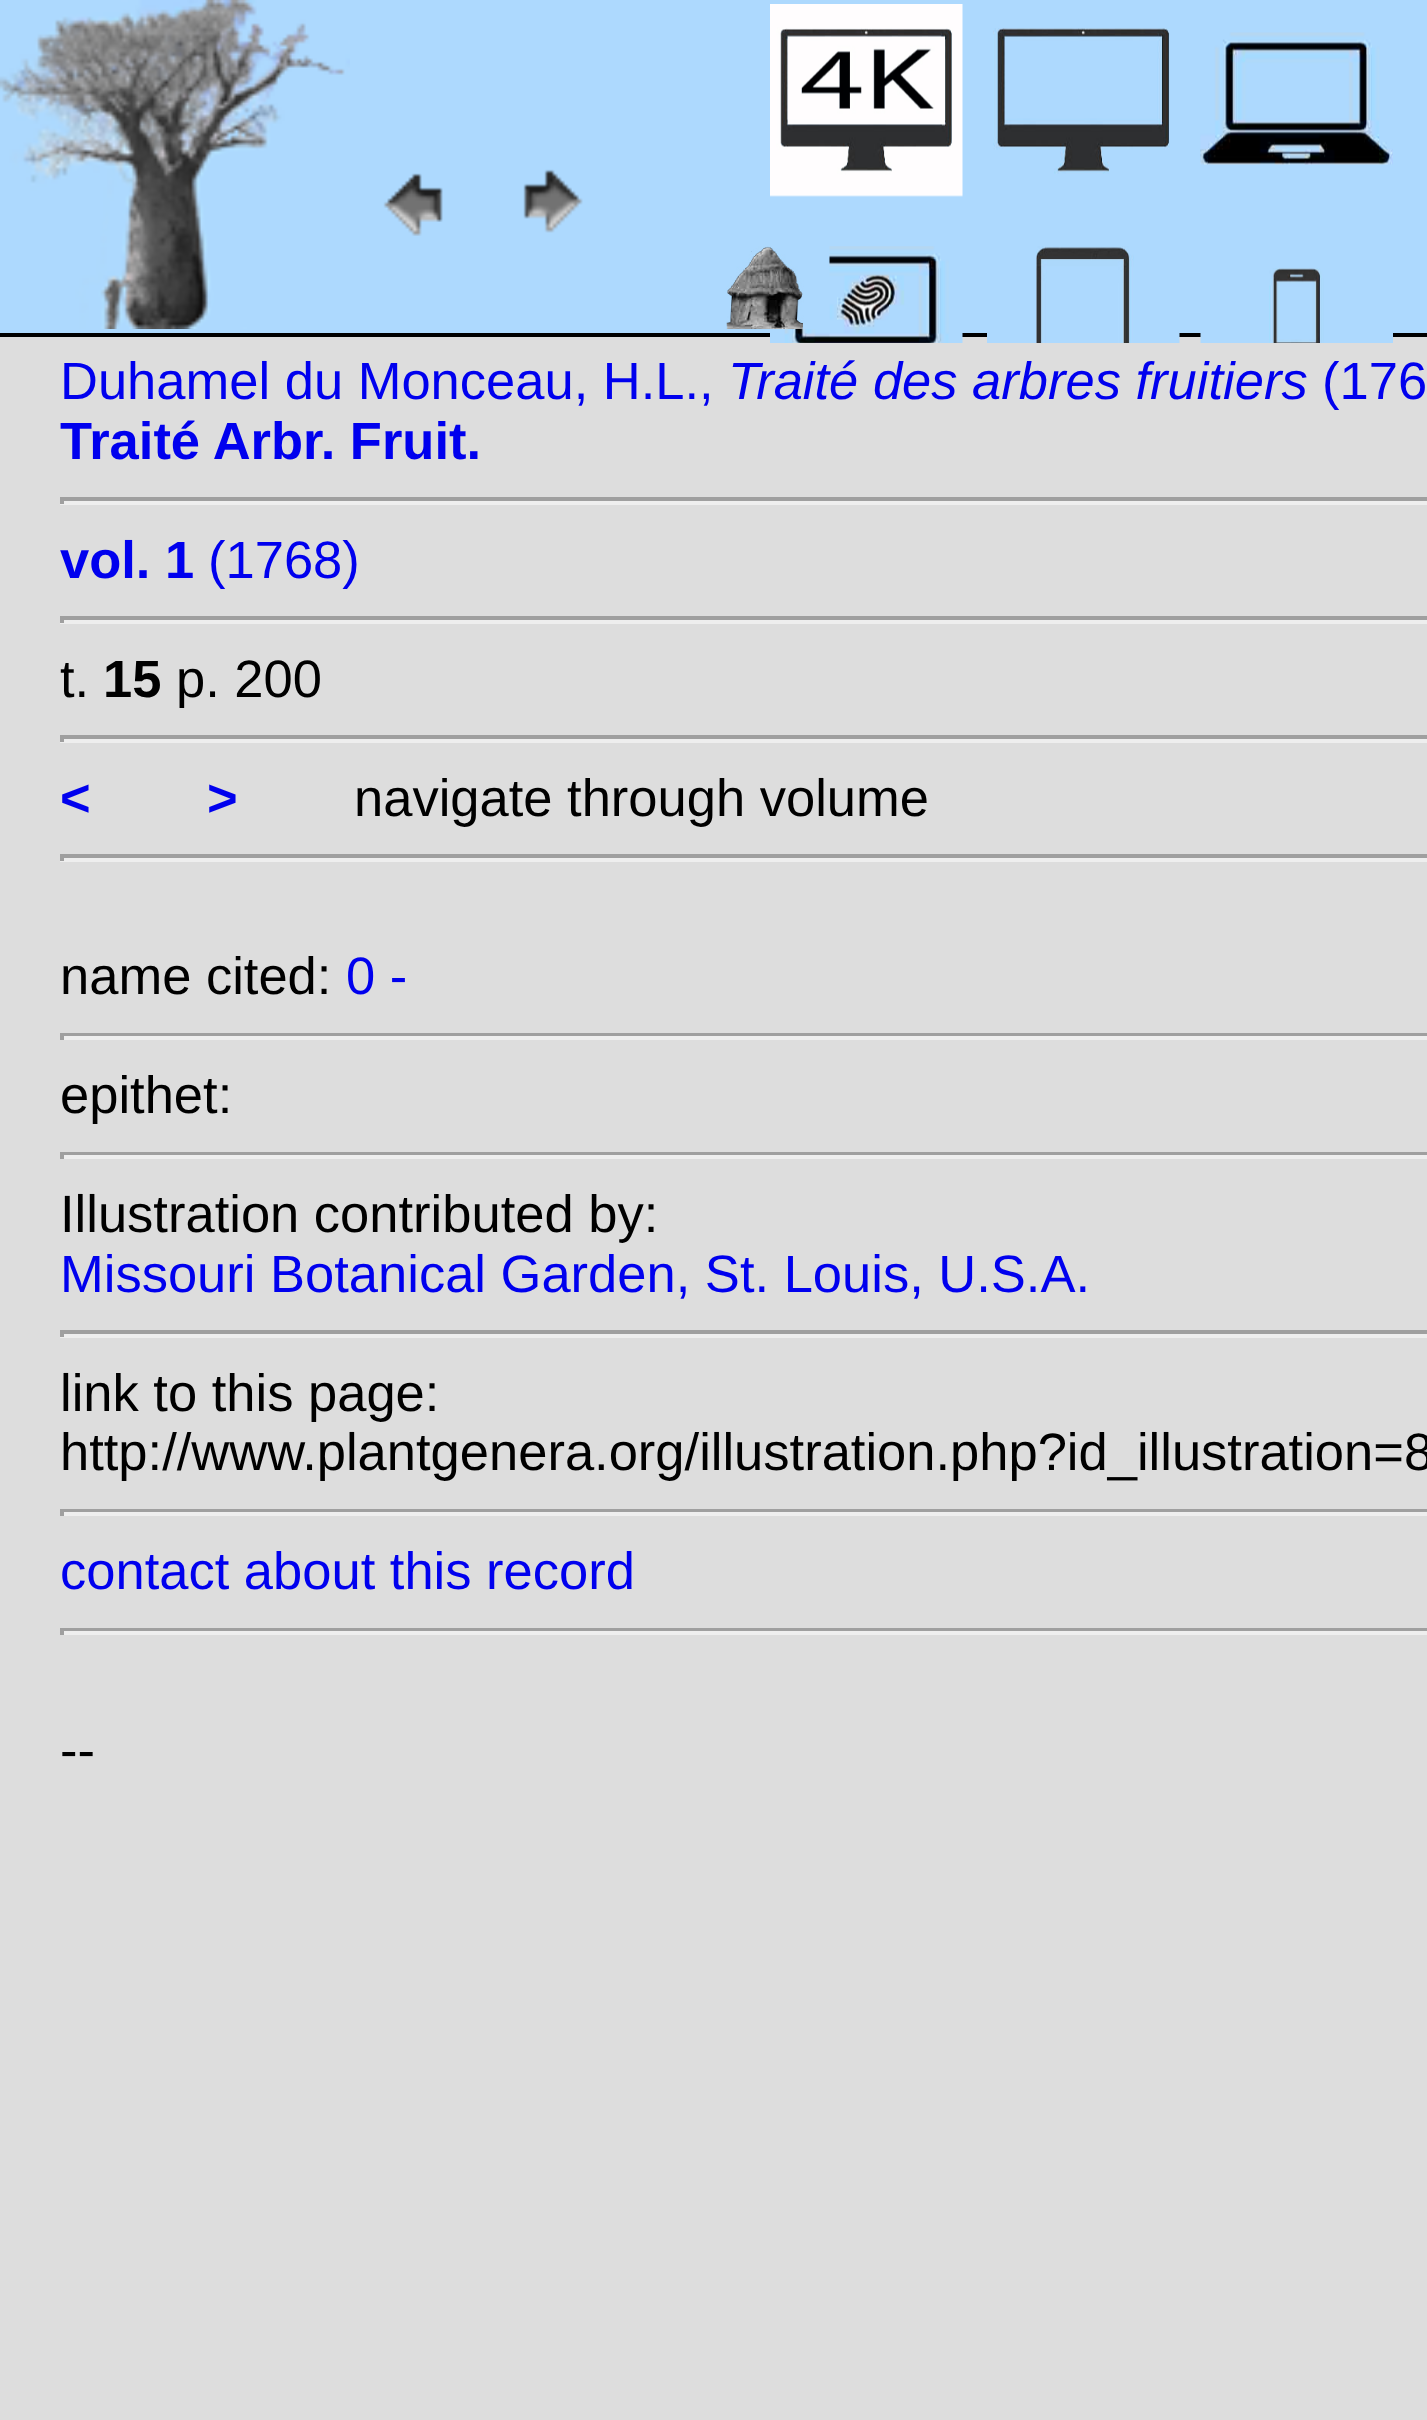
async function draw(canvas) {
  canvas.width = 1427;
  canvas.height = 2420;
  const ctx = canvas.getContext('2d');
  ctx.miterLimit = 4;
  ctx.fontKerning = 'normal';
  function label(s, x, y, font, color) {
    ctx.font = font;
    ctx.fillStyle = color;
    ctx.fillText(s, x, y);
  }
  function rect(x, y, w, h, color) {
    ctx.fillStyle = color;
    ctx.fillRect(x, y, w, h);
  }
  async function image(src, x, y, w, h) {
    const img = new Image();
    img.src = src;
    await img.decode();
    ctx.drawImage(img, x, y, w, h);
  }

  rect(0, 0, 1427, 2420, '#ddd');
  rect(0, 0, 1427, 333, '#add9fe');
  rect(0, 333, 1427, 4, '#000');
  await image('assets/img1.png', 0, 0, 350, 329);
  await image('assets/img2.png', 383, 173, 60, 63);
  await image('assets/img3.png', 523, 169, 60, 64);
  await image('assets/img4.png', 770, 4, 193, 193);
  await image('assets/img5.png', 993, 28, 177, 146);
  await image('assets/img6.png', 1200, 32, 193, 133);
  await image('assets/img7.png', 770, 246, 193, 97);
  await image('assets/img8.png', 987, 246, 193, 97);
  await image('assets/img9.png', 1200, 268, 193, 75);
  await image('assets/img10.png', 726, 246, 104, 83);
  label('Duhamel du Monceau, H.L.,', 60, 399, '52.5px Liberation Sans', '#00e');
  label('Traité des arbres fruitiers', 728, 399, 'italic 52.5px Liberation Sans', '#00e');
  label('(176', 1322, 399, '52.5px Liberation Sans', '#00e');
  label('Traité Arbr. Fruit.', 60, 459, 'bold 52.5px Liberation Sans', '#00e');
  rect(60, 497, 1367, 4, '#9f9f9f');
  rect(60, 501, 1367, 4, '#eee');
  rect(60, 497, 4, 7, '#9f9f9f');
  label('vol. 1', 60, 578, 'bold 52.5px Liberation Sans', '#00e');
  label('(1768)', 208, 578, '52.5px Liberation Sans', '#00e');
  rect(60, 616, 1367, 4, '#9f9f9f');
  rect(60, 620, 1367, 4, '#eee');
  rect(60, 616, 4, 7, '#9f9f9f');
  label('t.', 60, 697, '52.5px Liberation Sans', '#000');
  label('15', 103, 697, 'bold 52.5px Liberation Sans', '#000');
  label('p. 200', 176, 697, '52.5px Liberation Sans', '#000');
  rect(60, 735, 1367, 4, '#9f9f9f');
  rect(60, 739, 1367, 4, '#eee');
  rect(60, 735, 4, 7, '#9f9f9f');
  label('<', 60, 816, 'bold 52.5px Liberation Sans', '#00e');
  label('>', 207, 816, 'bold 52.5px Liberation Sans', '#00e');
  label('navigate through volume', 354, 816, '52.5px Liberation Sans', '#000');
  rect(60, 854, 1367, 4, '#9f9f9f');
  rect(60, 858, 1367, 4, '#eee');
  rect(60, 854, 4, 7, '#9f9f9f');
  label('name cited:', 60, 994, '52.5px Liberation Sans', '#000');
  label('0 -', 346, 994, '52.5px Liberation Sans', '#00e');
  rect(60, 1033, 1367, 3, '#9f9f9f');
  rect(60, 1036, 1367, 4, '#eee');
  rect(60, 1033, 4, 7, '#9f9f9f');
  label('epithet:', 60, 1113, '52.5px Liberation Sans', '#000');
  rect(60, 1152, 1367, 3, '#9f9f9f');
  rect(60, 1155, 1367, 4, '#eee');
  rect(60, 1152, 4, 7, '#9f9f9f');
  label('Illustration contributed by:', 60, 1232, '52.5px Liberation Sans', '#000');
  label('Missouri Botanical Garden, St. Louis, U.S.A.', 60, 1292, '52.5px Liberation Sans', '#00e');
  rect(60, 1330, 1367, 4, '#9f9f9f');
  rect(60, 1334, 1367, 4, '#eee');
  rect(60, 1330, 4, 7, '#9f9f9f');
  label('link to this page:', 60, 1411, '52.5px Liberation Sans', '#000');
  label('http://www.plantgenera.org/illustration.php?id_illustration=8', 60, 1470, '52.5px Liberation Sans', '#000');
  rect(60, 1509, 1367, 3, '#9f9f9f');
  rect(60, 1512, 1367, 4, '#eee');
  rect(60, 1509, 4, 7, '#9f9f9f');
  label('contact about this record', 60, 1589, '52.5px Liberation Sans', '#00e');
  rect(60, 1628, 1367, 3, '#9f9f9f');
  rect(60, 1631, 1367, 4, '#eee');
  rect(60, 1628, 4, 7, '#9f9f9f');
  label('--', 60, 1768, '52.5px Liberation Sans', '#000');
}

draw(document.querySelector('canvas'));
